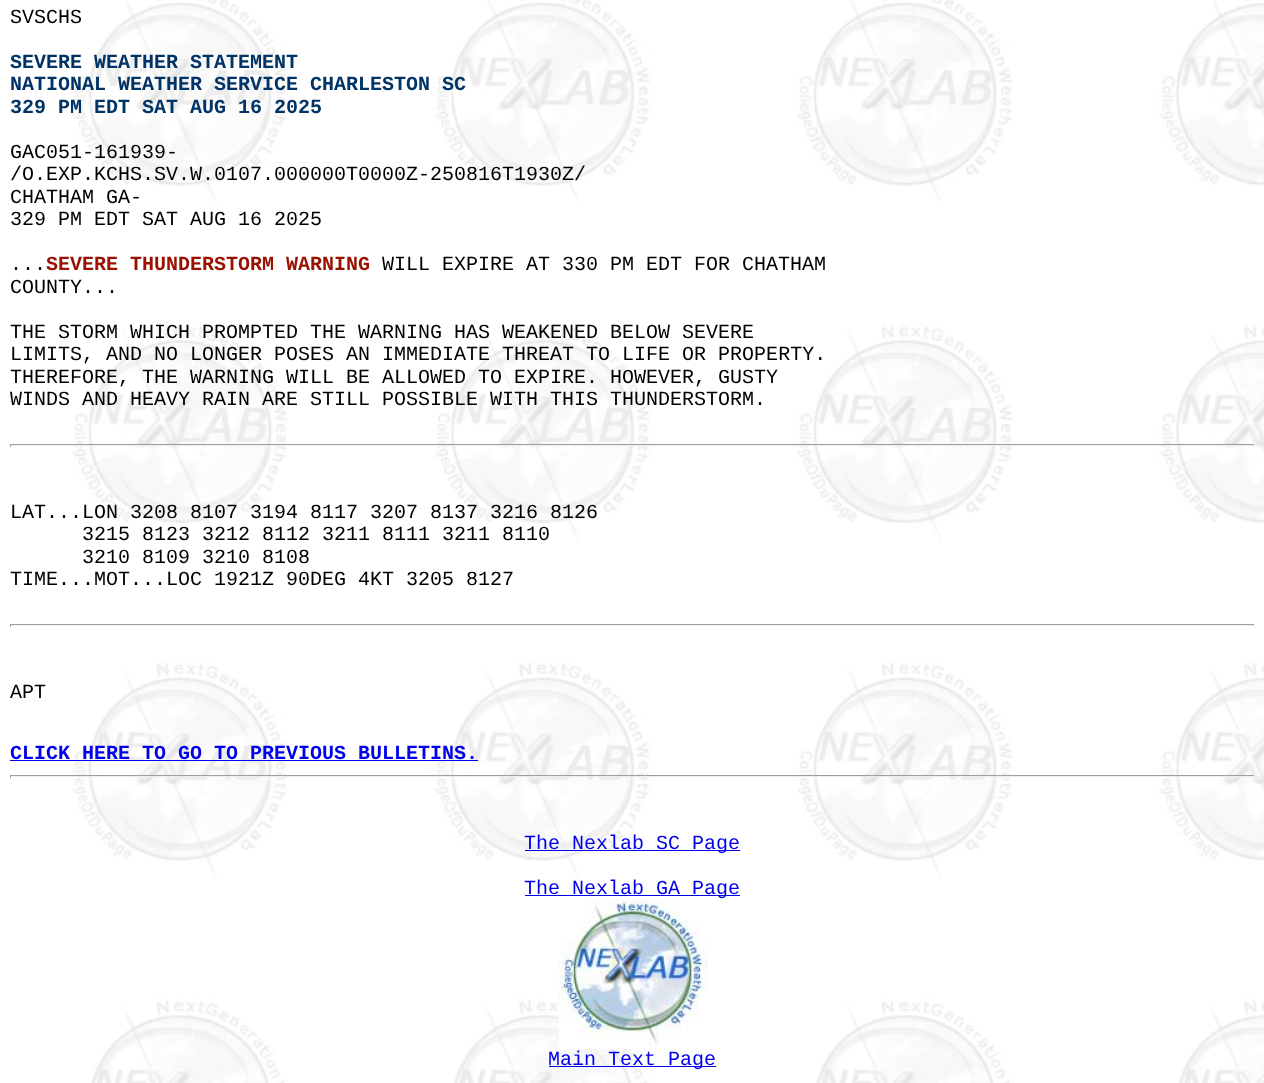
async function draw(canvas) {
  canvas.width = 1264;
  canvas.height = 1083;
  const ctx = canvas.getContext('2d');
  ctx.miterLimit = 4;
  ctx.fontKerning = 'normal';
  function label(s, x, y, font, color) {
    ctx.font = font;
    ctx.fillStyle = color;
    ctx.fillText(s, x, y);
  }
  function rect(x, y, w, h, color) {
    ctx.fillStyle = color;
    ctx.fillRect(x, y, w, h);
  }
  async function image(src, x, y, w, h) {
    const img = new Image();
    img.src = src;
    await img.decode();
    ctx.drawImage(img, x, y, w, h);
  }

  rect(0, 0, 1264, 1083, '#fff');
  await image('assets/img1.png', 72, 0, 1192, 1083);
  label('SVSCHS', 10, 23, '20px Liberation Mono', '#000');
  label('SEVERE WEATHER STATEMENT', 10, 68, 'bold 20px Liberation Mono', '#036');
  label('NATIONAL WEATHER SERVICE CHARLESTON SC', 10, 90, 'bold 20px Liberation Mono', '#036');
  label('329 PM EDT SAT AUG 16 2025', 10, 113, 'bold 20px Liberation Mono', '#036');
  label('GAC051-161939-', 10, 158, '20px Liberation Mono', '#000');
  label('/O.EXP.KCHS.SV.W.0107.000000T0000Z-250816T1930Z/', 10, 180, '20px Liberation Mono', '#000');
  label('CHATHAM GA-', 10, 203, '20px Liberation Mono', '#000');
  label('329 PM EDT SAT AUG 16 2025', 10, 225, '20px Liberation Mono', '#000');
  label('...', 10, 270, '20px Liberation Mono', '#000');
  label('SEVERE THUNDERSTORM WARNING', 46, 270, 'bold 20px Liberation Mono', '#910');
  label('WILL EXPIRE AT 330 PM EDT FOR CHATHAM', 382, 270, '20px Liberation Mono', '#000');
  label('COUNTY...', 10, 293, '20px Liberation Mono', '#000');
  label('THE STORM WHICH PROMPTED THE WARNING HAS WEAKENED BELOW SEVERE', 10, 338, '20px Liberation Mono', '#000');
  label('LIMITS, AND NO LONGER POSES AN IMMEDIATE THREAT TO LIFE OR PROPERTY.', 10, 360, '20px Liberation Mono', '#000');
  label('THEREFORE, THE WARNING WILL BE ALLOWED TO EXPIRE. HOWEVER, GUSTY', 10, 383, '20px Liberation Mono', '#000');
  label('WINDS AND HEAVY RAIN ARE STILL POSSIBLE WITH THIS THUNDERSTORM.', 10, 405, '20px Liberation Mono', '#000');
  rect(10, 444, 1245, 1, '#9f9f9f');
  rect(1254, 444, 1, 3, '#eee');
  rect(10, 445, 1245, 1, '#eee');
  rect(10, 444, 1, 3, '#9f9f9f');
  label('LAT...LON 3208 8107 3194 8117 3207 8137 3216 8126', 10, 518, '20px Liberation Mono', '#000');
  label('3215 8123 3212 8112 3211 8111 3211 8110', 82, 540, '20px Liberation Mono', '#000');
  label('3210 8109 3210 8108', 82, 563, '20px Liberation Mono', '#000');
  label('TIME...MOT...LOC 1921Z 90DEG 4KT 3205 8127', 10, 585, '20px Liberation Mono', '#000');
  rect(10, 624, 1245, 1, '#9f9f9f');
  rect(1254, 624, 1, 3, '#eee');
  rect(10, 625, 1245, 1, '#eee');
  rect(10, 624, 1, 3, '#9f9f9f');
  label('APT', 10, 698, '20px Liberation Mono', '#000');
  label('CLICK HERE TO GO TO PREVIOUS BULLETINS.', 10, 759, 'bold 20px Liberation Mono', '#00e');
  rect(10, 760, 468, 1, '#00e');
  rect(10, 775, 1245, 1, '#9f9f9f');
  rect(1254, 775, 1, 3, '#eee');
  rect(10, 776, 1245, 1, '#eee');
  rect(10, 775, 1, 3, '#9f9f9f');
  rect(525, 850, 215, 1, '#00e');
  label('The Nexlab SC Page', 524, 849, '20px Liberation Mono', '#00e');
  rect(525, 895, 215, 1, '#00e');
  label('The Nexlab GA Page', 524, 894, '20px Liberation Mono', '#00e');
  await image('assets/img2.png', 558, 900, 150, 149);
  rect(549, 1066, 167, 1, '#00e');
  label('Main Text Page', 548, 1065, '20px Liberation Mono', '#00e');
}

draw(document.querySelector('canvas'));
